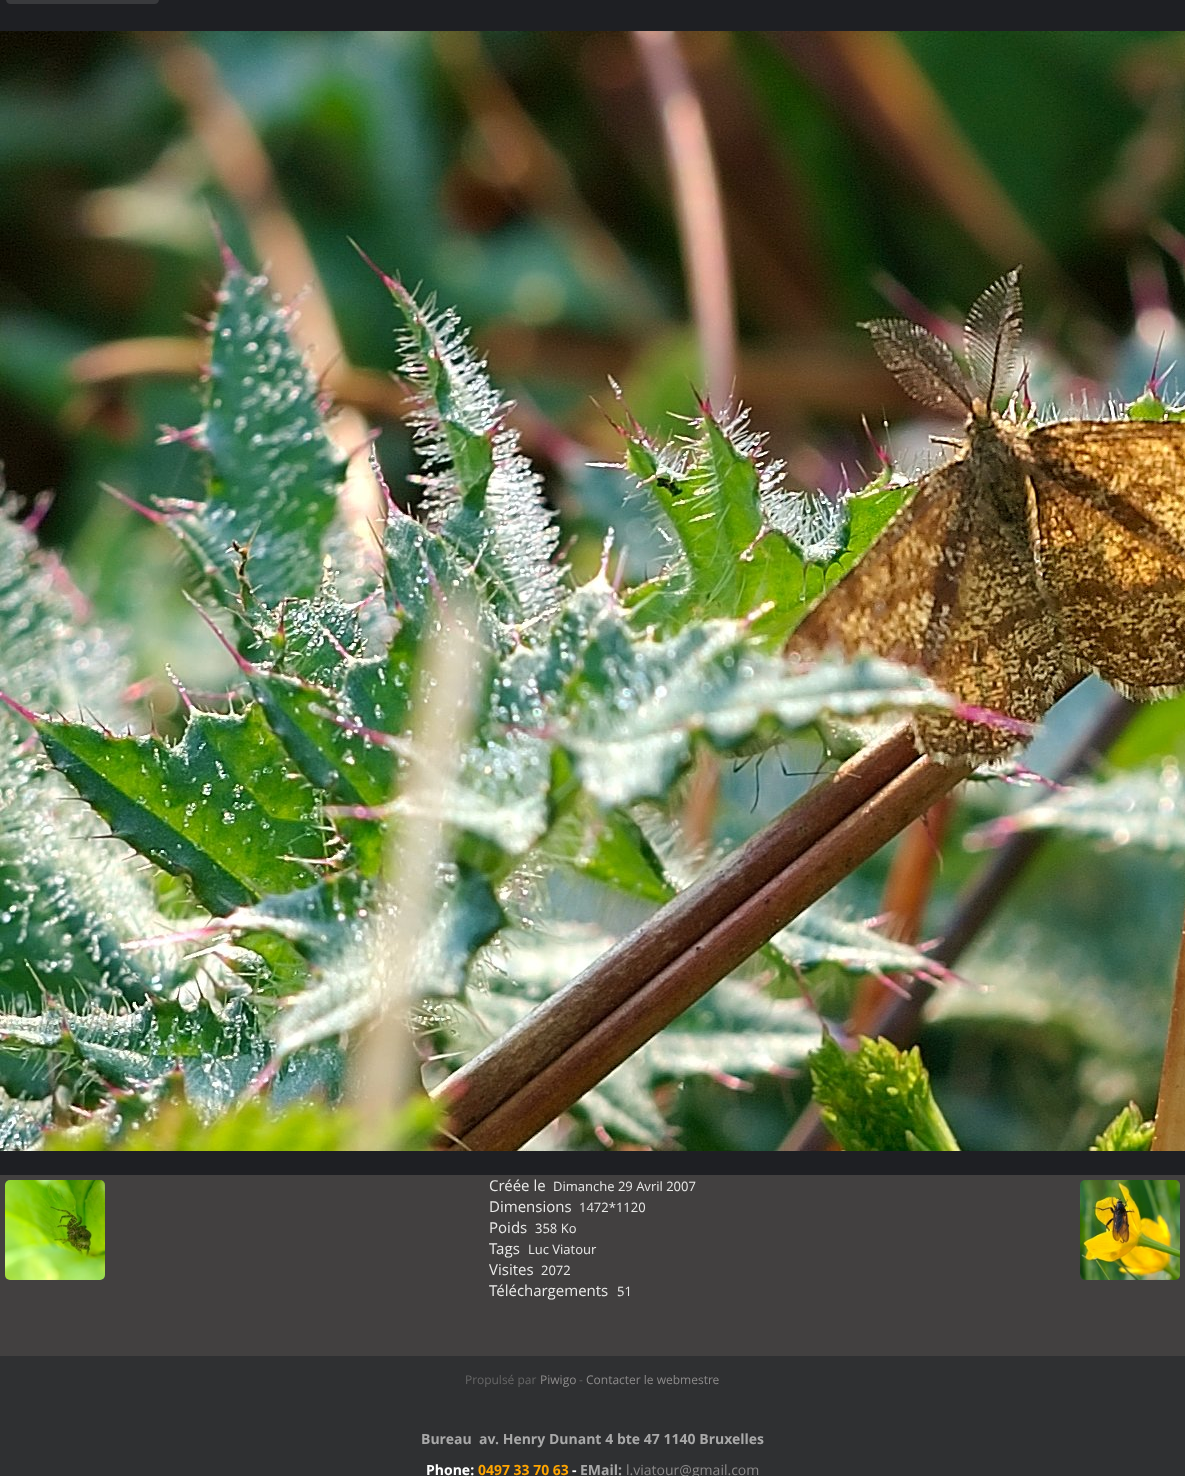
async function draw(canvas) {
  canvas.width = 1185;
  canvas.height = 1476;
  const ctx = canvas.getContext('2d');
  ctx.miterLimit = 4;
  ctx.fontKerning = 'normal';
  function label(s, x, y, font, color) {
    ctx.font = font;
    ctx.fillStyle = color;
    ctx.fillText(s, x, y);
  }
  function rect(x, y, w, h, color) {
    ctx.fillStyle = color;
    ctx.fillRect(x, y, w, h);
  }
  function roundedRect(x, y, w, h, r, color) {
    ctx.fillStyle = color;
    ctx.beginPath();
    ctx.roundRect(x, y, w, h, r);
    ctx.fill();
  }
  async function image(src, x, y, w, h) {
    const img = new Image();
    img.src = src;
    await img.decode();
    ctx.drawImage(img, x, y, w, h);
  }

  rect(0, 0, 1185, 1476, '#1e1f23');
  roundedRect(6, -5, 153, 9, 5, '#393a3d');
  await image('assets/img1.png', 0, 31, 1185, 1120);
  rect(0, 1175, 1185, 181, '#424040');
  label('Créée le', 489, 1191, '15px Open Sans', '#eaeae9');
  label('Dimanche 29 Avril 2007', 553, 1191, '13px Open Sans', '#eaeae9');
  label('Dimensions', 489, 1212, '15px Open Sans', '#eaeae9');
  label('1472*1120', 579, 1212, '13px Open Sans', '#eaeae9');
  label('Poids', 489, 1233, '15px Open Sans', '#eaeae9');
  label('358 Ko', 535, 1233, '13px Open Sans', '#eaeae9');
  label('Tags', 489, 1254, '15px Open Sans', '#eaeae9');
  label('Luc Viatour', 528, 1254, '13px Open Sans', '#eaeae9');
  label('Visites', 489, 1275, '15px Open Sans', '#eaeae9');
  label('2072', 541, 1275, '13px Open Sans', '#eaeae9');
  label('Téléchargements', 489, 1296, '15px Open Sans', '#eaeae9');
  label('51', 617, 1296, '13px Open Sans', '#eaeae9');
  await image('assets/img2.png', 5, 1180, 100, 100);
  await image('assets/img3.png', 1080, 1180, 100, 100);
  rect(0, 1356, 1185, 120, '#2f3032');
  label('Propulsé par', 465, 1384, '12px Open Sans', '#666');
  label('Piwigo', 540, 1384, '12px Open Sans', '#8d8b8b');
  label('-', 579, 1384, '12px Open Sans', '#666');
  label('Contacter le webmestre', 586, 1384, '12px Open Sans', '#8d8b8b');
  ctx.wordSpacing = '0.1px';
  label('Bureau  av. Henry Dunant 4 bte 47 1140 Bruxelles', 421, 1444, 'bold 14px Open Sans', '#a9a9a9');
  ctx.wordSpacing = '0px';
  label('Phone:', 426, 1475, 'bold 14px Open Sans', '#fff');
  label('0497 33 70 63', 478, 1475, 'bold 14px Open Sans', '#ffa500');
  label('-', 572, 1475, 'bold 14px Open Sans', '#fff');
  label('EMail:', 580, 1475, 'bold 14px Open Sans', '#a9a9a9');
  label('l.viatour@gmail.com', 626, 1475, '14px Open Sans', '#8d8b8b');
}

draw(document.querySelector('canvas'));
